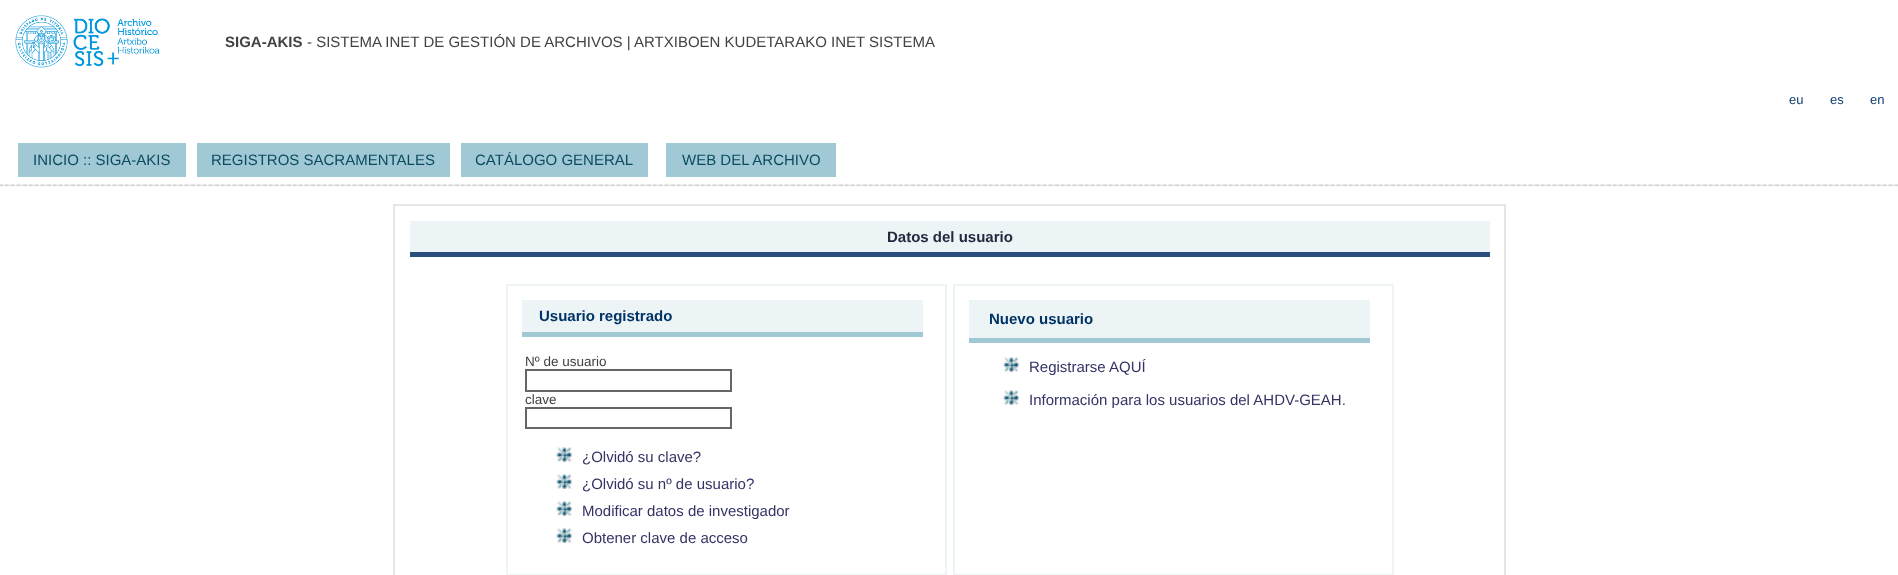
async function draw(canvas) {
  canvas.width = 1898;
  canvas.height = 575;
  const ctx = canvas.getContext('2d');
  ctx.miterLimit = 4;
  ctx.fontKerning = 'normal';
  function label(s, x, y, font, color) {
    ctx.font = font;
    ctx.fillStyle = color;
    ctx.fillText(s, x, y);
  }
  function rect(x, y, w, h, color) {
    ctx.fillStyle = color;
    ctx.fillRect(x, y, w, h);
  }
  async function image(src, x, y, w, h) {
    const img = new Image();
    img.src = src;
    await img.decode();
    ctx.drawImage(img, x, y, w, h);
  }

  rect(0, 0, 1898, 575, '#fff');
  await image('assets/img1.png', 15, 15, 145, 53);
  label('SIGA-AKIS', 225, 47, 'bold 15px Liberation Sans', '#424242');
  label('- SISTEMA INET DE GESTIÓN DE ARCHIVOS | ARTXIBOEN KUDETARAKO INET SISTEMA', 307, 47, '15px Liberation Sans', '#424242');
  label('eu', 1789, 104, '13px Liberation Sans', '#0e3e6f');
  label('es', 1830, 104, '13px Liberation Sans', '#0e3e6f');
  label('en', 1870, 104, '13px Liberation Sans', '#0e3e6f');
  await image('assets/img2.png', 0, 184, 1898, 3);
  rect(18, 143, 168, 34, '#a1c9d5');
  label('INICIO :: SIGA-AKIS', 33, 165, '15px Liberation Sans', '#0b4c5f');
  rect(197, 143, 253, 34, '#a1c9d5');
  label('REGISTROS SACRAMENTALES', 211, 165, '15px Liberation Sans', '#0b4c5f');
  rect(461, 143, 187, 34, '#a1c9d5');
  label('CATÁLOGO GENERAL', 475, 165, '15px Liberation Sans', '#0b4c5f');
  rect(666, 143, 170, 34, '#a1c9d5');
  label('WEB DEL ARCHIVO', 682, 165, '15px Liberation Sans', '#0b4c5f');
  ctx.strokeStyle = '#e5e5e5';
  ctx.lineWidth = 2;
  ctx.strokeRect(394, 205, 1111, 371);
  rect(410, 221, 1080, 31, '#ecf4f6');
  rect(410, 252, 1080, 5, '#2a4e7d');
  label('Datos del usuario', 887, 242, 'bold 15px Liberation Sans', '#26283f');
  ctx.strokeStyle = '#ecf4f6';
  ctx.strokeRect(507, 285, 439, 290);
  rect(522, 300, 401, 32, '#ecf4f6');
  rect(522, 332, 401, 5, '#a1c9d5');
  label('Usuario registrado', 539, 321, 'bold 15px Liberation Sans', '#036');
  label('Nº de usuario', 525, 366, '13.5px Liberation Sans', '#424242');
  ctx.strokeStyle = '#666';
  ctx.strokeRect(526, 370, 205, 21);
  label('clave', 525, 404, '13.5px Liberation Sans', '#424242');
  ctx.strokeRect(526, 408, 205, 20);
  await image('assets/img3.png', 556, 447, 16, 15);
  label('¿Olvidó su clave?', 582, 462, '15px Liberation Sans', '#336');
  await image('assets/img3.png', 556, 474, 16, 15);
  label('¿Olvidó su nº de usuario?', 582, 489, '15px Liberation Sans', '#336');
  await image('assets/img3.png', 556, 501, 16, 15);
  label('Modificar datos de investigador', 582, 516, '15px Liberation Sans', '#336');
  await image('assets/img3.png', 556, 528, 16, 15);
  label('Obtener clave de acceso', 582, 543, '15px Liberation Sans', '#336');
  ctx.strokeStyle = '#ecf4f6';
  ctx.strokeRect(954, 285, 439, 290);
  rect(969, 300, 401, 38, '#ecf4f6');
  rect(969, 338, 401, 5, '#a1c9d5');
  label('Nuevo usuario', 989, 324, 'bold 15px Liberation Sans', '#036');
  await image('assets/img4.png', 1003, 357, 16, 15);
  label('Registrarse AQUÍ', 1029, 372, '15px Liberation Sans', '#336');
  await image('assets/img4.png', 1003, 390, 16, 15);
  label('Información para los usuarios del AHDV-GEAH.', 1029, 405, '15px Liberation Sans', '#336');
}

draw(document.querySelector('canvas'));
